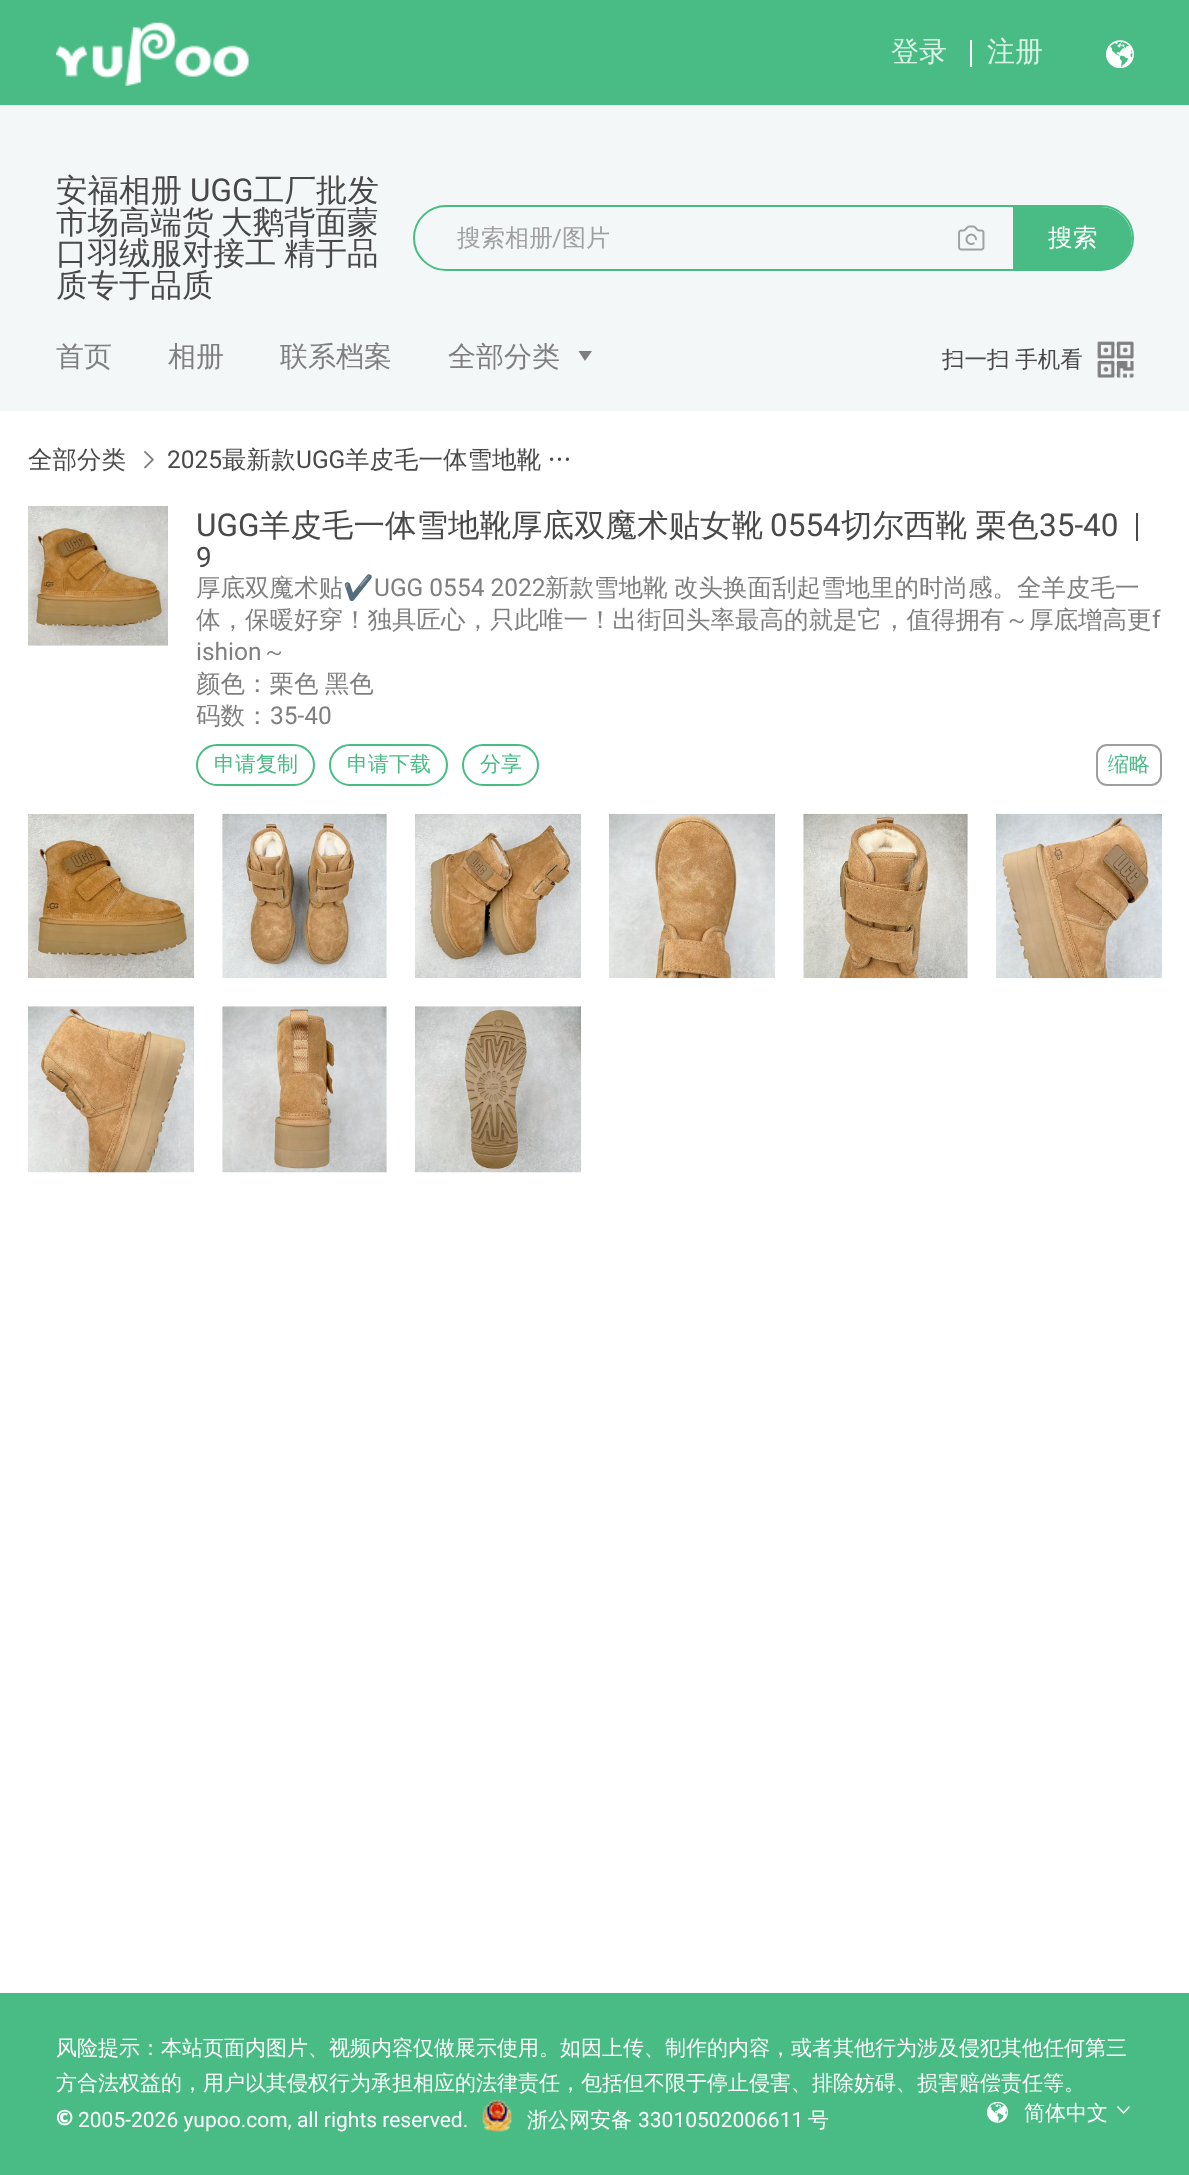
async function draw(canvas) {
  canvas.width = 1189;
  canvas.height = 2175;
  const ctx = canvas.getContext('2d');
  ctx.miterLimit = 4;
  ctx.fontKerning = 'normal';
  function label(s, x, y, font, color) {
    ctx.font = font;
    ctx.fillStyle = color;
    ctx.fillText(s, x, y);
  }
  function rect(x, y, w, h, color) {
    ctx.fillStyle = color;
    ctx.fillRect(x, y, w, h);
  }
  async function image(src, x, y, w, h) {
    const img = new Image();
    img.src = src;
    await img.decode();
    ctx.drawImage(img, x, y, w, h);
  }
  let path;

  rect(0, 0, 1189, 2175, '#fff');
  rect(0, 0, 1189, 105, '#49bc85');
  await image('assets/img1.png', 56, 22, 193, 64);
  label('登录', 891, 61, '500 28px WenQuanYi Zen Hei', '#dbf2e7');
  rect(970, 40, 2, 27, '#fff');
  label('注册', 987, 61, '500 28px WenQuanYi Zen Hei', '#dbf2e7');
  await image('assets/img2.png', 1106, 40, 28, 28);
  rect(0, 105, 1189, 306, '#f3f7f7');
  label('安福相册', 56, 201, '500 31.5px WenQuanYi Zen Hei', '#494949');
  label('UGG', 190, 201, '31.5px Roboto', '#494949');
  label('工厂批发', 253, 201, '500 31.5px WenQuanYi Zen Hei', '#494949');
  ctx.wordSpacing = '-2px';
  label('市场高端货 大鹅背面蒙', 56, 233, '500 31.5px WenQuanYi Zen Hei', '#494949');
  label('口羽绒服对接工 精于品', 56, 264, '500 31.5px WenQuanYi Zen Hei', '#494949');
  ctx.wordSpacing = '0px';
  label('质专于品质', 56, 296, '500 31.5px WenQuanYi Zen Hei', '#494949');
  ctx.beginPath();
  ctx.roundRect(414, 206, 719, 64, 32);
  ctx.strokeStyle = '#49bc85';
  ctx.lineWidth = 2;
  ctx.stroke();
  label('搜索相册', 457, 246, '500 24px WenQuanYi Zen Hei', '#9f9f9f');
  label('/', 552, 246, '24px Roboto', '#9f9f9f');
  label('图片', 562, 246, '500 24px WenQuanYi Zen Hei', '#9f9f9f');
  await image('assets/img3.png', 958, 225, 27, 26);
  ctx.fillStyle = '#49bc85';
  ctx.beginPath();
  ctx.roundRect(1014, 208, 117, 61, [0, 30.5, 30.5, 0]);
  ctx.fill();
  ctx.stroke();
  label('搜', 1048, 246, '24.5px Noto Sans', '#fff');
  label('索', 1073, 246, '500 24.5px WenQuanYi Zen Hei', '#fff');
  label('首页', 56, 366, '500 28px WenQuanYi Zen Hei', '#7f7f7f');
  label('相册', 168, 366, '500 28px WenQuanYi Zen Hei', '#7f7f7f');
  label('联系档案', 280, 366, '500 28px WenQuanYi Zen Hei', '#7f7f7f');
  label('全部分类', 448, 366, '500 28px WenQuanYi Zen Hei', '#7f7f7f');
  path = new Path2D('M585 361L578.5 351H592Z');
  ctx.fill(path);
  ctx.wordSpacing = '-1px';
  label('扫一扫 手机看', 942, 367, '500 22.5px WenQuanYi Zen Hei', '#494949');
  await image('assets/img4.png', 1097, 341, 37, 37);
  ctx.wordSpacing = '0px';
  label('全部分类', 28, 468, '500 24.5px WenQuanYi Zen Hei', '#494949');
  await image('assets/img5.png', 144, 451, 10, 18);
  label('2025', 167, 468, '24.5px Roboto', '#494949');
  label('最新款', 222, 468, '500 24.5px WenQuanYi Zen Hei', '#494949');
  label('UGG', 296, 468, '24.5px Roboto', '#494949');
  ctx.wordSpacing = '-1px';
  label('羊皮毛一体雪地靴 …', 345, 468, '500 24.5px WenQuanYi Zen Hei', '#494949');
  await image('assets/img6.png', 28, 505, 140, 141);
  ctx.wordSpacing = '0px';
  label('UGG', 196, 536, '31.5px Roboto', '#494949');
  label('羊皮毛一体雪地靴厚底双魔术贴女靴', 259, 536, '500 31.5px WenQuanYi Zen Hei', '#494949');
  label('0554', 770, 536, '31.5px Roboto', '#494949');
  ctx.wordSpacing = '-1px';
  label('切尔西靴 栗色', 841, 536, '500 31.5px WenQuanYi Zen Hei', '#494949');
  ctx.wordSpacing = '0px';
  label('35-40', 1039, 536, '31.5px Roboto', '#494949');
  rect(1136, 513, 2, 28, '#494949');
  label('9', 196, 567, '28px Roboto', '#494949');
  label('厚底双魔术贴', 196, 596, '500 24.5px WenQuanYi Zen Hei', '#7f7f7f');
  label('✔️', 343, 596, '24.5px Noto Color Emoji', '#7f7f7f');
  label('UGG 0554 2022', 374, 596, '24.5px Roboto', '#7f7f7f');
  label('新款雪地靴', 545, 596, '500 24.5px WenQuanYi Zen Hei', '#7f7f7f');
  label('改头换面刮起雪地里的时尚感。全羊皮毛一', 674, 596, '500 24.5px WenQuanYi Zen Hei', '#7f7f7f');
  label('体，保暖好穿！独具匠心，只此唯一！出街回头率最高的就是它，值得拥有～厚底增高更', 196, 628, '500 24.5px WenQuanYi Zen Hei', '#7f7f7f');
  label('f', 1152, 628, '24.5px Roboto', '#7f7f7f');
  label('ishion', 196, 660, '24.5px Roboto', '#7f7f7f');
  label('～', 262, 660, '500 24.5px WenQuanYi Zen Hei', '#7f7f7f');
  ctx.wordSpacing = '-1px';
  label('颜色：栗色 黑色', 196, 692, '500 24.5px WenQuanYi Zen Hei', '#7f7f7f');
  ctx.wordSpacing = '0px';
  label('码数：', 196, 724, '500 24.5px WenQuanYi Zen Hei', '#7f7f7f');
  label('35-40', 270, 724, '24.5px Roboto', '#7f7f7f');
  ctx.beginPath();
  ctx.roundRect(197, 745, 117, 40, 20);
  ctx.stroke();
  label('申请复制', 214, 771, '500 21px WenQuanYi Zen Hei', '#49bc85');
  ctx.beginPath();
  ctx.roundRect(330, 745, 117, 40, 20);
  ctx.stroke();
  label('申请下载', 347, 771, '500 21px WenQuanYi Zen Hei', '#49bc85');
  ctx.beginPath();
  ctx.roundRect(463, 745, 75, 40, 20);
  ctx.stroke();
  label('分享', 480, 771, '500 21px WenQuanYi Zen Hei', '#49bc85');
  ctx.beginPath();
  ctx.roundRect(1097, 745, 64, 40, 10);
  ctx.strokeStyle = '#9f9f9f';
  ctx.stroke();
  label('缩略', 1108, 771, '500 21px WenQuanYi Zen Hei', '#49bc85');
  await image('assets/img7.png', 28, 813, 167, 166);
  await image('assets/img8.png', 222, 813, 165, 165);
  await image('assets/img9.png', 414, 813, 167, 165);
  await image('assets/img10.png', 609, 813, 167, 166);
  await image('assets/img11.png', 803, 813, 165, 166);
  await image('assets/img12.png', 995, 813, 167, 166);
  await image('assets/img13.png', 28, 1006, 167, 167);
  await image('assets/img14.png', 222, 1006, 165, 167);
  await image('assets/img15.png', 414, 1006, 167, 167);
  rect(0, 1993, 1189, 182, '#49bc85');
  label('风', 56, 2055, '21px Noto Sans', '#fff');
  label('险提示：本站页面内图片、视频内容仅做展示使用。如因上传、制作的内容，或者其他行为涉及侵犯其他任何第三', 77, 2055, '500 21px WenQuanYi Zen Hei', '#fff');
  label('方合法权益的，用户以其侵权行为承担相应的法律责任，包括但不限于停止侵害、排除妨碍、损害赔偿责任等。', 56, 2090, '500 21px WenQuanYi Zen Hei', '#fff');
  label('©', 56, 2125, '900 21px Noto Sans', '#fff');
  label('2005-2026 yupoo.com, all rights reserved.', 78, 2127, '21px Roboto', '#fff');
  await image('assets/img16.png', 482, 2100, 30, 32);
  label('浙公网安备', 527, 2127, '500 21px WenQuanYi Zen Hei', '#fff');
  label('33010502006611', 638, 2127, '21px Roboto', '#fff');
  label('号', 808, 2127, '500 21px WenQuanYi Zen Hei', '#fff');
  await image('assets/img17.png', 987, 2102, 21, 21);
  label('简体中文', 1024, 2120, '500 21px WenQuanYi Zen Hei', '#fff');
  await image('assets/img18.png', 1117, 2106, 13, 8);
}

draw(document.querySelector('canvas'));
